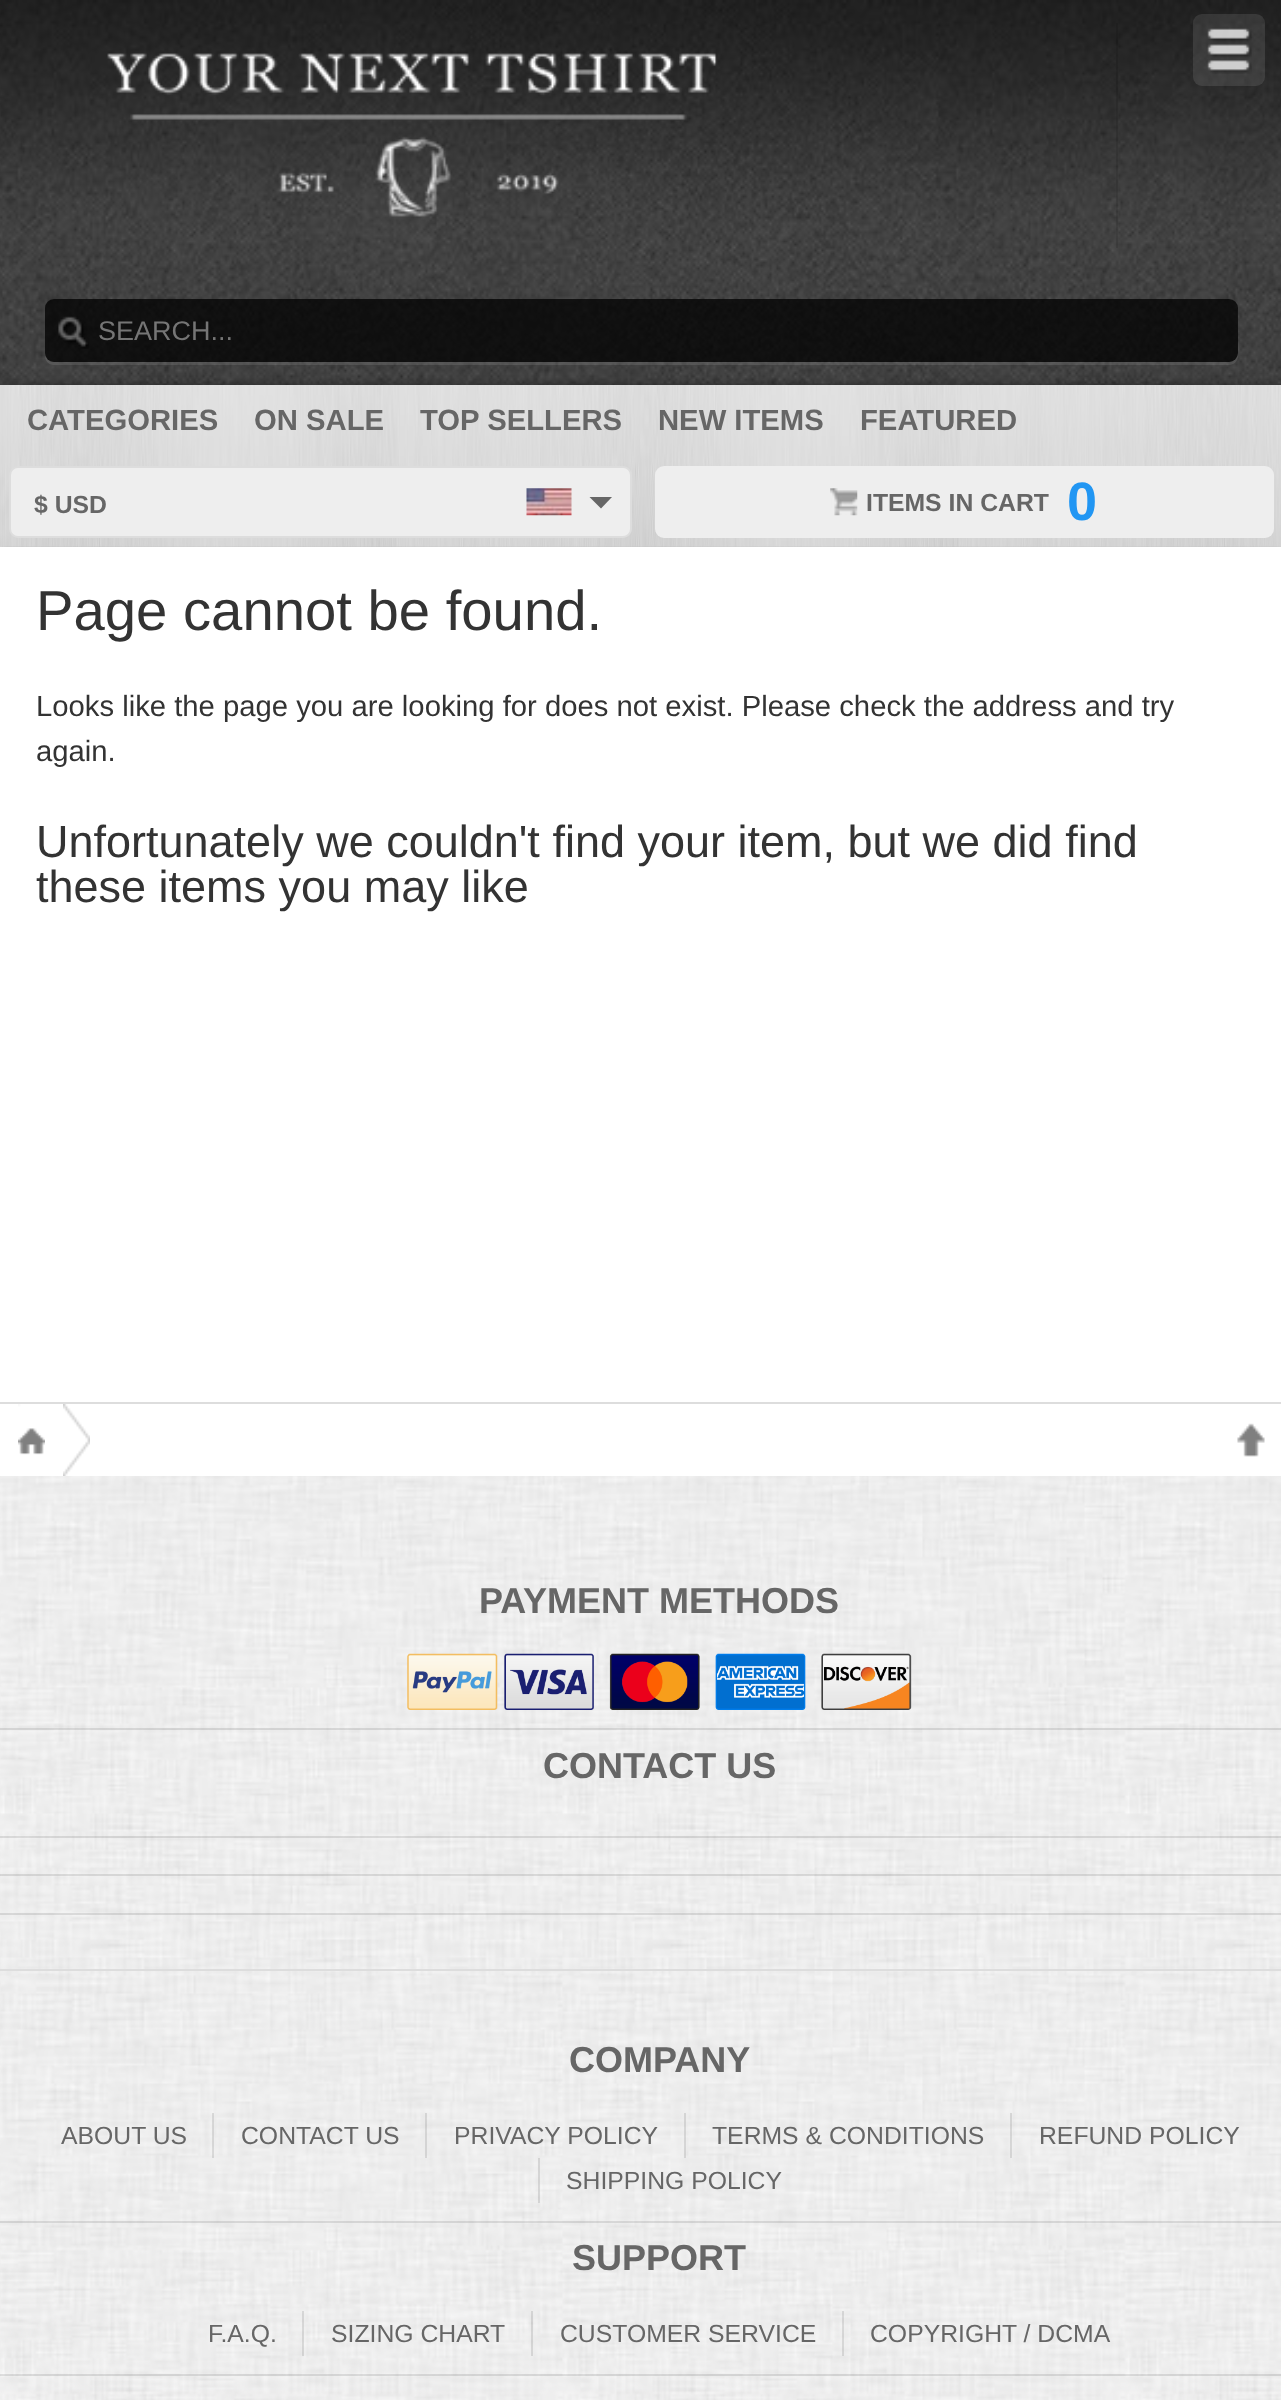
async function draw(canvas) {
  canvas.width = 1281;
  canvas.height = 2400;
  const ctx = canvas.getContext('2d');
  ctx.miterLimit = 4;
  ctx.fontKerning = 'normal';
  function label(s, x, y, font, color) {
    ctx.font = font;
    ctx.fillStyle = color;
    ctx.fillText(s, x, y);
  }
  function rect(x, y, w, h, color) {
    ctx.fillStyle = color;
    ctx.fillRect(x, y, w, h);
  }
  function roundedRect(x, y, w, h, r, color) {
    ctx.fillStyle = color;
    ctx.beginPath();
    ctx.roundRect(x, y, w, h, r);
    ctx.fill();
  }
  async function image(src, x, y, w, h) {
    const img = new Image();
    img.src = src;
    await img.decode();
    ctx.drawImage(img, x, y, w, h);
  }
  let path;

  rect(0, 0, 1281, 2400, '#fff');
  await image('assets/img1.png', 0, 546, 1281, 1854);
  await image('assets/img2.png', 0, 0, 1281, 385);
  ctx.fillStyle = '#0000001a';
  path = new Path2D('M20 248H1118V23H1116V248Z');
  ctx.fill(path);
  await image('assets/img3.png', 107, 53, 610, 164);
  roundedRect(1193, 14, 72, 72, 9, '#ffffff1a');
  await image('assets/img4.png', 1207, 28, 45, 46);
  path = new Path2D('M45 353V356C45 361 49 365 54 365H1229C1234 365 1238 361 1238 356V311L1237 308L1238 338C1238 346 1241 362 1228 362H54C49 362 45 358 45 353Z');
  ctx.fill(path);
  roundedRect(45, 299, 1193, 63, 9, '#000000bf');
  await image('assets/img5.png', 58, 316, 31, 33);
  label('SEARCH...', 98, 340, '27px Liberation Sans', '#757575');
  ctx.fillStyle = '#00000059';
  ctx.filter = 'blur(4.5px)';
  ctx.beginPath();
  ctx.rect(0, 385, 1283, 162);
  ctx.fill();
  ctx.filter = 'none';
  await image('assets/img6.png', 0, 385, 1281, 162);
  label('CATEGORIES', 27, 430, 'bold 29.25px Liberation Sans', '#666');
  label('ON SALE', 254, 430, 'bold 29.25px Liberation Sans', '#666');
  label('TOP SELLERS', 420, 430, 'bold 29.25px Liberation Sans', '#666');
  label('NEW ITEMS', 658, 430, 'bold 29.25px Liberation Sans', '#666');
  label('FEATURED', 860, 430, 'bold 29.25px Liberation Sans', '#666');
  ctx.fillStyle = '#eee';
  ctx.beginPath();
  ctx.roundRect(10, 467, 621, 70, 8);
  ctx.fill();
  ctx.strokeStyle = '#ddd';
  ctx.lineWidth = 2;
  ctx.stroke();
  label('$ USD', 34, 513, 'bold 24.75px Liberation Sans', '#666');
  await image('assets/img7.png', 526, 488, 46, 28);
  path = new Path2D('M589.5 497H612L601 508.5Z');
  ctx.fill(path);
  roundedRect(655, 466, 619, 72, 9, '#eee');
  await image('assets/img8.png', 830, 488, 28, 28);
  label('ITEMS IN CART', 866, 511, 'bold 24.75px Liberation Sans', '#666');
  label('0', 1067, 520, 'bold 54px Liberation Sans', '#2196f3');
  rect(0, 547, 1281, 929, '#fff');
  label('Page cannot be found.', 36, 630, '56.25px Liberation Sans', '#333');
  label('Looks like the page you are looking for does not exist. Please check the address and try', 36, 716, '29.25px Liberation Sans', '#333');
  label('again.', 36, 761, '29.25px Liberation Sans', '#333');
  label('Unfortunately we couldn\'t find your item, but we did find', 36, 857, '45px Liberation Sans', '#333');
  label('these items you may like', 36, 902, '45px Liberation Sans', '#333');
  rect(0, 1402, 1281, 2, '#ddd');
  await image('assets/img9.png', 63, 1404, 27, 72);
  await image('assets/img10.png', 18, 1404, 27, 51);
  await image('assets/img11.png', 1237, 1423, 28, 34);
  rect(0, 1728, 1281, 2, '#0000001a');
  label('PAYMENT METHODS', 479, 1613, 'bold 36px Liberation Sans', '#666');
  await image('assets/img12.png', 407, 1653, 91, 57);
  await image('assets/img13.png', 504, 1653, 408, 57);
  rect(0, 1836, 1281, 2, '#0000001a');
  label('CONTACT US', 543, 1778, 'bold 36px Liberation Sans', '#666');
  rect(0, 1874, 1281, 2, '#0000001a');
  rect(0, 1913, 1281, 2, '#0000001a');
  rect(0, 1969, 1281, 2, '#ddd');
  rect(0, 2221, 1281, 2, '#0000001a');
  label('COMPANY', 569, 2072, 'bold 36px Liberation Sans', '#666');
  label('ABOUT US', 61, 2144, '24.75px Liberation Sans', '#666');
  rect(212, 2113, 2, 45, '#0000001a');
  label('CONTACT US', 241, 2144, '24.75px Liberation Sans', '#666');
  rect(425, 2113, 2, 45, '#0000001a');
  label('PRIVACY POLICY', 454, 2144, '24.75px Liberation Sans', '#666');
  rect(684, 2113, 2, 45, '#0000001a');
  label('TERMS & CONDITIONS', 712, 2144, '24.75px Liberation Sans', '#666');
  rect(1010, 2113, 2, 45, '#0000001a');
  label('REFUND POLICY', 1039, 2144, '24.75px Liberation Sans', '#666');
  rect(538, 2158, 2, 45, '#0000001a');
  label('SHIPPING POLICY', 566, 2189, '24.75px Liberation Sans', '#666');
  rect(0, 2374, 1281, 2, '#0000001a');
  label('SUPPORT', 572, 2270, 'bold 36px Liberation Sans', '#666');
  label('F.A.Q.', 208, 2342, '24.75px Liberation Sans', '#666');
  rect(302, 2311, 2, 45, '#0000001a');
  label('SIZING CHART', 331, 2342, '24.75px Liberation Sans', '#666');
  rect(531, 2311, 2, 45, '#0000001a');
  label('CUSTOMER SERVICE', 560, 2342, '24.75px Liberation Sans', '#666');
  rect(842, 2311, 2, 45, '#0000001a');
  label('COPYRIGHT / DCMA', 870, 2342, '24.75px Liberation Sans', '#666');
}

draw(document.querySelector('canvas'));
